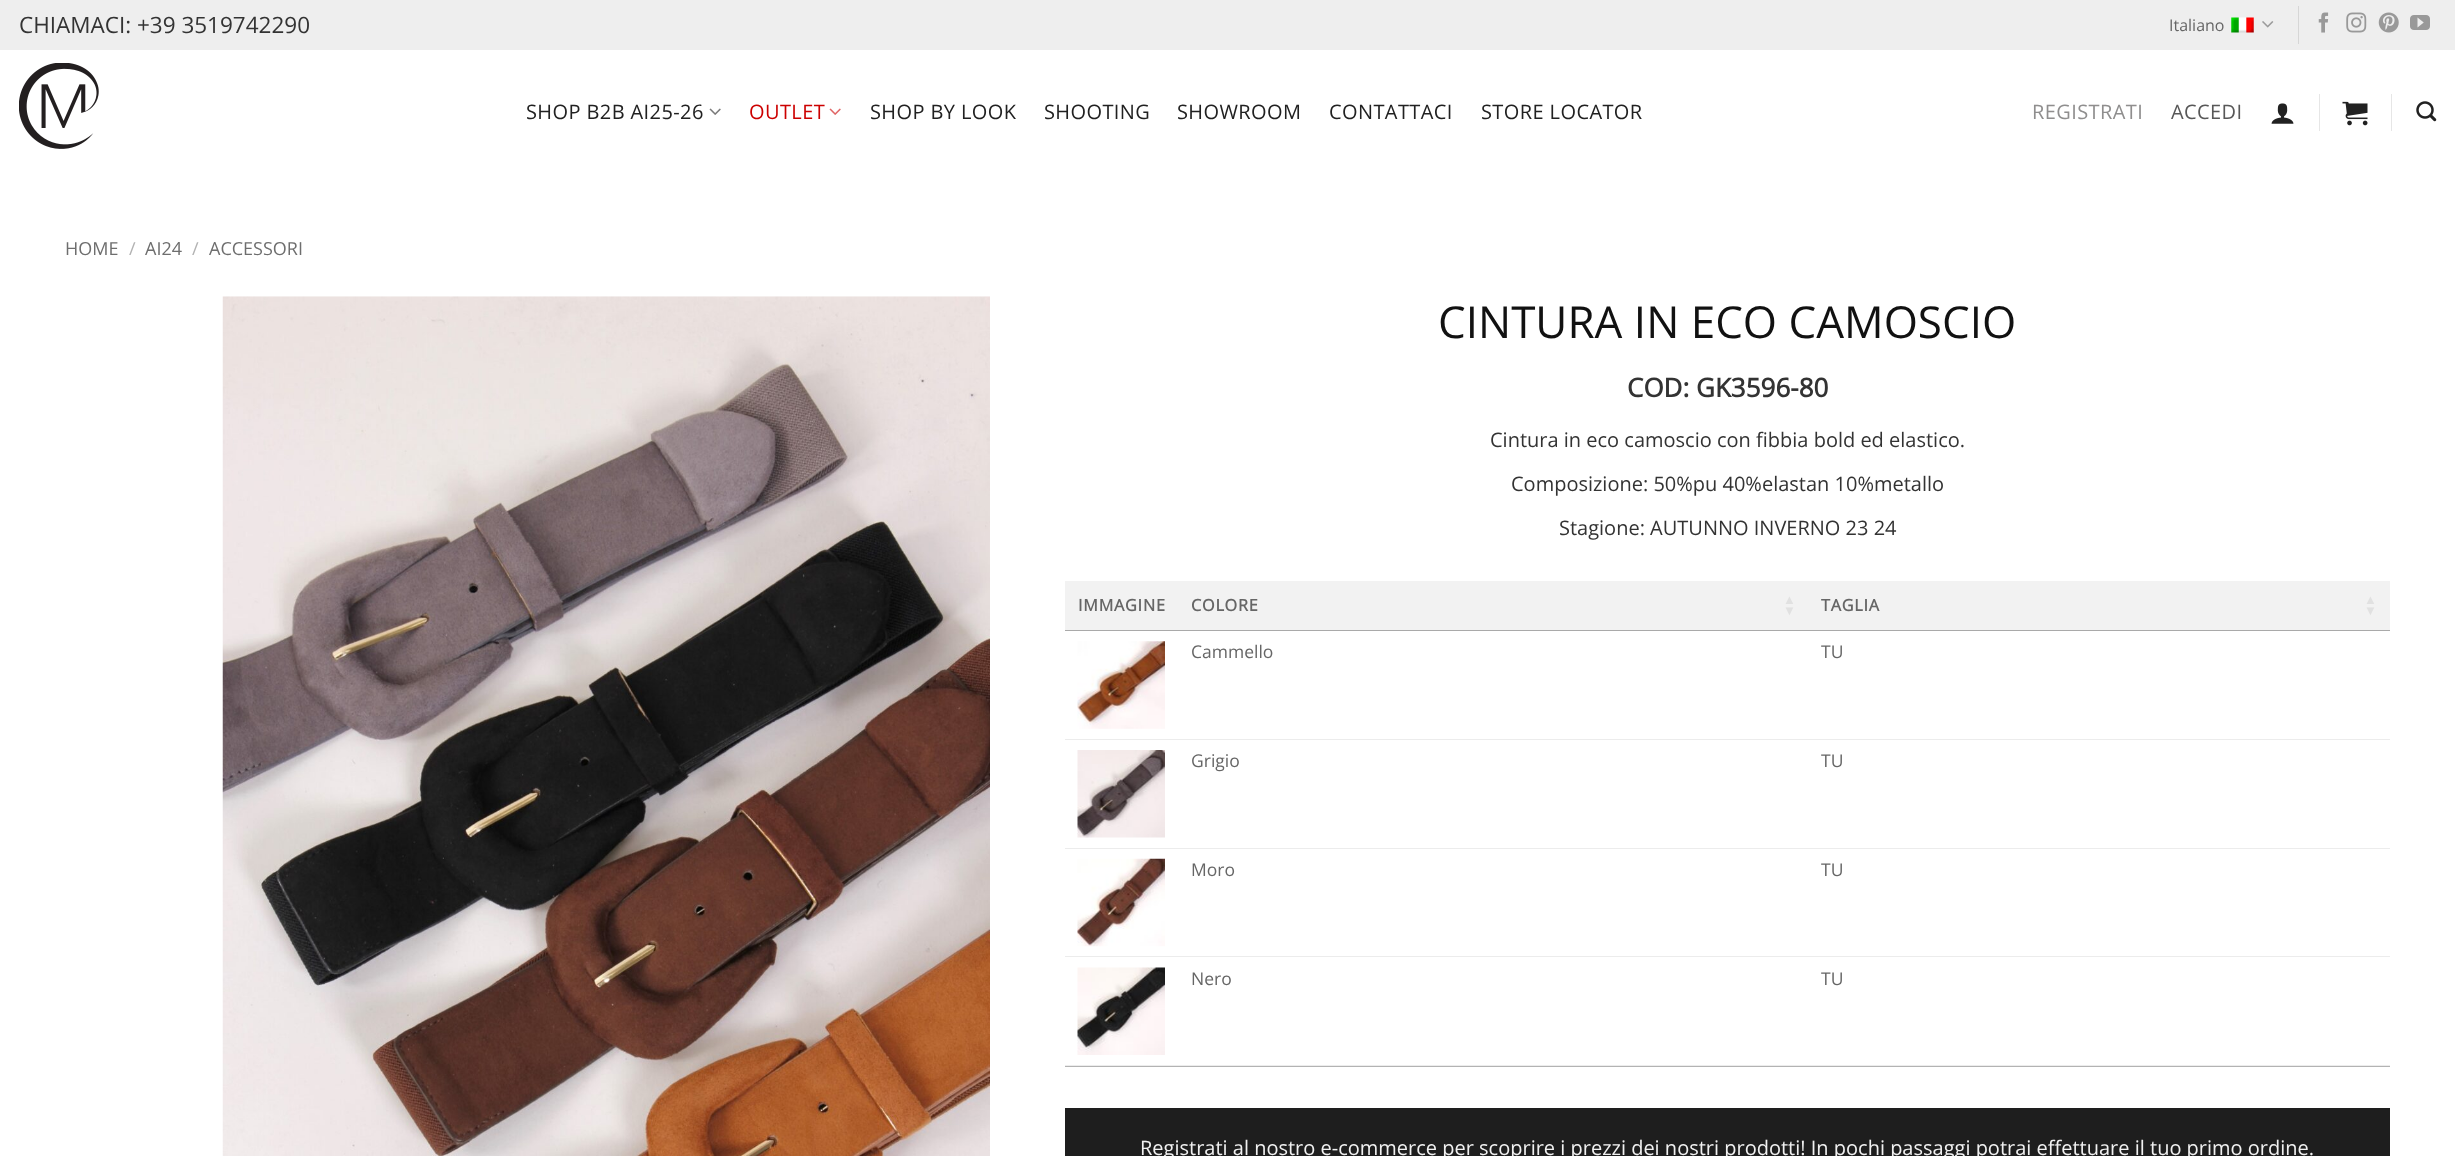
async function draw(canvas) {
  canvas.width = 2455;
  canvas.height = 1156;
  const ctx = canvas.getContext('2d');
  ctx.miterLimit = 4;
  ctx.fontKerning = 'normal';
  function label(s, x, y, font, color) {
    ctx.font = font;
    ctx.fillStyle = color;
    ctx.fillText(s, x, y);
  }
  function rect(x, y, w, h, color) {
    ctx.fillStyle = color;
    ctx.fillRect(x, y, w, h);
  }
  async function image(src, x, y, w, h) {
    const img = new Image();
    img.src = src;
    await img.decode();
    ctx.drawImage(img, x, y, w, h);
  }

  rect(0, 0, 2455, 1156, '#fff');
  rect(0, 0, 2455, 50, '#eee');
  label('CHIAMACI: +39 3519742290', 19, 33, '22.5px Open Sans', '#333');
  label('Italiano', 2169, 31, '16px Open Sans', '#666');
  await image('assets/img1.png', 2231, 17, 23, 16);
  await image('assets/img2.png', 2262, 21, 12, 7);
  rect(2298, 6, 1, 38, '#d6d6d6');
  await image('assets/img3.png', 2318, 12, 11, 21);
  await image('assets/img4.png', 2346, 12, 21, 21);
  await image('assets/img5.png', 2378, 12, 21, 21);
  await image('assets/img6.png', 2410, 15, 20, 15);
  await image('assets/img7.png', 19, 63, 80, 86);
  ctx.letterSpacing = '0.4px';
  label('SHOP B2B AI25-26', 526, 119, '20px Open Sans', '#212121');
  await image('assets/img8.png', 709, 108, 12, 7);
  label('OUTLET', 749, 119, '20px Open Sans', '#c00');
  await image('assets/img9.png', 829, 108, 12, 7);
  label('SHOP BY LOOK', 870, 119, '20px Open Sans', '#212121');
  label('SHOOTING', 1044, 119, '20px Open Sans', '#212121');
  label('SHOWROOM', 1177, 119, '20px Open Sans', '#212121');
  label('CONTATTACI', 1329, 119, '20px Open Sans', '#212121');
  label('STORE LOCATOR', 1481, 119, '20px Open Sans', '#212121');
  label('REGISTRATI', 2032, 119, '20px Open Sans', '#8f8e8e');
  label('ACCEDI', 2171, 119, '20px Open Sans', '#585858');
  await image('assets/img10.png', 2271, 103, 23, 21);
  rect(2319, 94, 1, 37, '#e6e6e6');
  await image('assets/img11.png', 2342, 101, 26, 25);
  rect(2391, 94, 1, 37, '#e6e6e6');
  await image('assets/img12.png', 2416, 101, 21, 21);
  ctx.letterSpacing = '0px';
  label('HOME', 65, 255, '18px Open Sans', '#6e6e6e');
  label('/', 129, 255, '18px Open Sans', '#b2b2b2');
  label('AI24', 145, 255, '18px Open Sans', '#6e6e6e');
  label('/', 192, 255, '18px Open Sans', '#b2b2b2');
  label('ACCESSORI', 209, 255, '18px Open Sans', '#6e6e6e');
  await image('assets/img13.png', 222, 296, 768, 860);
  label('CINTURA IN ECO CAMOSCIO', 1438, 338, '44px Open Sans', '#111');
  label('COD: GK3596-80', 1627, 397, 'bold 26px Open Sans', '#333');
  label('Cintura in eco camoscio con fibbia bold ed elastico.', 1490, 447, '20px Open Sans', '#333');
  label('Composizione: 50%pu 40%elastan 10%metallo', 1511, 491, '20px Open Sans', '#333');
  label('Stagione: AUTUNNO INVERNO 23 24', 1559, 535, '20px Open Sans', '#333');
  rect(1065, 1066, 1325, 1, '#b3b3b3');
  rect(1065, 581, 1325, 49, '#f2f2f2');
  rect(1065, 630, 1325, 1, '#a9a9a9');
  ctx.letterSpacing = '0.75px';
  label('IMMAGINE', 1078, 611, 'bold 16.25px Open Sans', '#666');
  label('COLORE', 1191, 611, 'bold 16.25px Open Sans', '#666');
  label('▲', 1783, 604, 'bold 13px Liberation Sans', '#e1e1e1');
  label('▼', 1783, 615, 'bold 13px Liberation Sans', '#e1e1e1');
  label('TAGLIA', 1821, 611, 'bold 16.25px Open Sans', '#666');
  label('▲', 2364, 604, 'bold 13px Liberation Sans', '#e1e1e1');
  label('▼', 2364, 615, 'bold 13px Liberation Sans', '#e1e1e1');
  rect(1065, 739, 1325, 1, '#ececec');
  await image('assets/img14.png', 1077, 641, 88, 88);
  ctx.letterSpacing = '0px';
  label('Cammello', 1191, 658, '17.5px Open Sans', '#666');
  label('TU', 1821, 658, '17.5px Open Sans', '#666');
  rect(1065, 848, 1325, 1, '#ececec');
  await image('assets/img15.png', 1077, 750, 88, 88);
  label('Grigio', 1191, 767, '17.5px Open Sans', '#666');
  label('TU', 1821, 767, '17.5px Open Sans', '#666');
  rect(1065, 956, 1325, 1, '#ececec');
  await image('assets/img16.png', 1077, 858, 88, 89);
  label('Moro', 1191, 876, '17.5px Open Sans', '#666');
  label('TU', 1821, 876, '17.5px Open Sans', '#666');
  rect(1065, 1065, 1325, 1, '#ececec');
  await image('assets/img17.png', 1077, 967, 88, 88);
  label('Nero', 1191, 985, '17.5px Open Sans', '#666');
  label('TU', 1821, 985, '17.5px Open Sans', '#666');
  rect(1065, 1108, 1325, 48, '#1e1e1e');
  label('Registrati al nostro e-commerce per scoprire i prezzi dei nostri prodotti! In pochi passaggi potrai effettuare il tuo primo ordine.', 1140, 1155, '20px Open Sans', '#f1f1f1');
}

draw(document.querySelector('canvas'));
